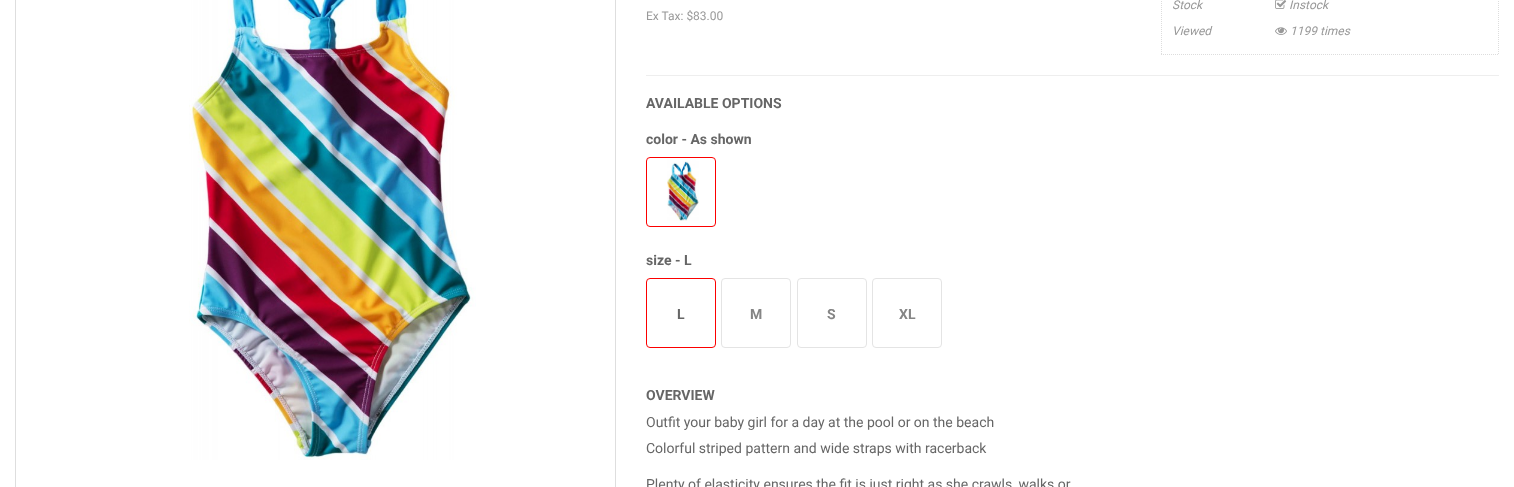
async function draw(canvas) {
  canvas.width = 1514;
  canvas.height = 487;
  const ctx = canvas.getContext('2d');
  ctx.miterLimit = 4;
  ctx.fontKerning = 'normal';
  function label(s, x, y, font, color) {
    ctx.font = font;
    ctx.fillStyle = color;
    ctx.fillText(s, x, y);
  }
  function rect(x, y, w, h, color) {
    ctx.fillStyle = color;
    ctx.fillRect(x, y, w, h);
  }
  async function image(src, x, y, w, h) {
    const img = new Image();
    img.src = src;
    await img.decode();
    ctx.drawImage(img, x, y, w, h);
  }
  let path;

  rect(0, 0, 1514, 487, '#fff');
  ctx.strokeStyle = '#dedede';
  ctx.strokeRect(15.5, -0.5, 600, 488);
  await image('assets/img1.png', 189, 0, 287, 460);
  label('Ex Tax: $83.00', 646, 20, '12px Roboto', '#999');
  path = new Path2D('M1498.5-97V55');
  ctx.strokeStyle = '#ddd';
  ctx.setLineDash([1, 1]);
  ctx.stroke(path);
  path = new Path2D('M1161 54.5H1499');
  ctx.stroke(path);
  path = new Path2D('M1161.5-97V55');
  ctx.stroke(path);
  label('Stock', 1172, 9, 'italic 12px Roboto', '#999');
  await image('assets/img2.png', 1275, 0, 12, 9);
  label('Instock', 1289, 9, 'italic 12px Roboto', '#999');
  label('Viewed', 1172, 35, 'italic 12px Roboto', '#999');
  await image('assets/img3.png', 1275, 27, 12, 8);
  label('1199 times', 1290, 35, 'italic 12px Roboto', '#999');
  rect(646, 75, 853, 1, '#eee');
  label('AVAILABLE OPTIONS', 646, 108, 'bold 14px Roboto', '#666');
  label('color - As shown', 646, 144, 'bold 14px Roboto', '#666');
  ctx.beginPath();
  ctx.roundRect(646.5, 157.5, 69, 69, 3.5);
  ctx.strokeStyle = '#fc0000';
  ctx.setLineDash([]);
  ctx.stroke();
  await image('assets/img4.png', 667, 159, 32, 62);
  label('size - L', 646, 265, 'bold 14px Roboto', '#666');
  ctx.beginPath();
  ctx.roundRect(646.5, 278.5, 69, 69, 3.5);
  ctx.stroke();
  label('L', 677, 319, 'bold 14px Roboto', '#666');
  ctx.beginPath();
  ctx.roundRect(721.5, 278.5, 69, 69, 3.5);
  ctx.strokeStyle = '#e4e4e4';
  ctx.stroke();
  label('M', 750, 319, 'bold 14px Roboto', '#858585');
  ctx.beginPath();
  ctx.roundRect(797.5, 278.5, 69, 69, 3.5);
  ctx.stroke();
  label('S', 827, 319, 'bold 14px Roboto', '#858585');
  ctx.beginPath();
  ctx.roundRect(872.5, 278.5, 69, 69, 3.5);
  ctx.stroke();
  label('XL', 899, 319, 'bold 14px Roboto', '#858585');
  label('OVERVIEW', 646, 400, 'bold 14px Roboto', '#666');
  label('Outfit your baby girl for a day at the pool or on the beach', 646, 427, '14px Roboto', '#666');
  label('Colorful striped pattern and wide straps with racerback', 646, 453, '14px Roboto', '#666');
  label('Plenty of elasticity ensures the fit is just right as she crawls, walks or', 646, 489, '14px Roboto', '#666');
}

draw(document.querySelector('canvas'));
